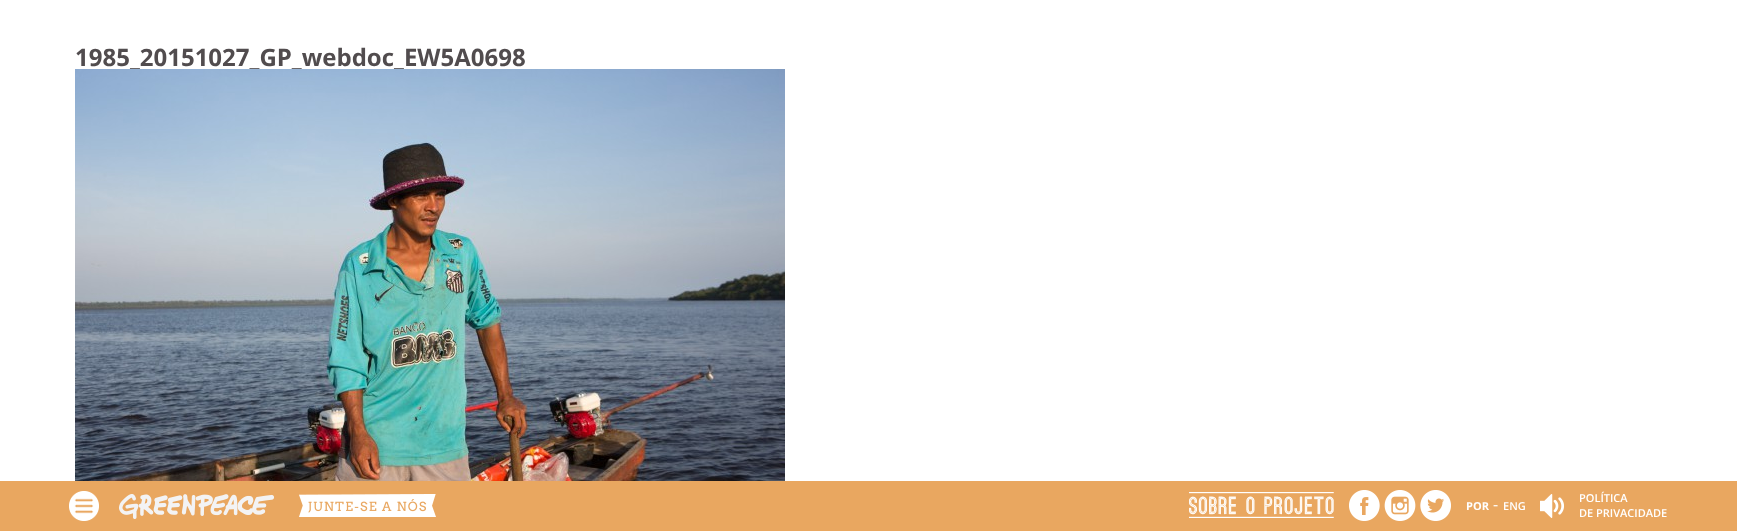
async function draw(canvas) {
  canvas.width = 1737;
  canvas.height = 531;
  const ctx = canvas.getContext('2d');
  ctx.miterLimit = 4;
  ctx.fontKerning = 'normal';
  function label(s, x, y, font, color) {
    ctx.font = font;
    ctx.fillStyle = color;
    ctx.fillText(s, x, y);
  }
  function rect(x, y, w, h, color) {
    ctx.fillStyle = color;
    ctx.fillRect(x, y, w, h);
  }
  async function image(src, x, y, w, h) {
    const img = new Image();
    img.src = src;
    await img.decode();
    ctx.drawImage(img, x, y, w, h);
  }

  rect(0, 0, 1737, 531, '#fff');
  label('1985_20151027_GP_webdoc_EW5A0698', 75, 66, 'bold 24px Open Sans', '#514c4e');
  await image('assets/img1.png', 75, 69, 710, 412);
  rect(0, 481, 1737, 50, '#e9a760');
  await image('assets/img2.png', 69, 491, 30, 30);
  await image('assets/img3.png', 119, 494, 155, 25);
  await image('assets/img4.png', 299, 494, 137, 23);
  await image('assets/img5.png', 1189, 492, 145, 26);
  await image('assets/img6.png', 1349, 490, 31, 31);
  await image('assets/img7.png', 1384, 490, 32, 31);
  await image('assets/img8.png', 1420, 490, 31, 31);
  label('POR', 1466, 510, 'bold 11px Open Sans', '#fff');
  label('-', 1493, 510, '16px Open Sans', '#fff');
  label('ENG', 1503, 510, '600 11px Open Sans', '#fff');
  await image('assets/img9.png', 1540, 494, 24, 24);
  label('POLÍTICA', 1579, 502, '600 11px Open Sans', '#fff');
  label('DE PRIVACIDADE', 1579, 517, '600 11px Open Sans', '#fff');
}

draw(document.querySelector('canvas'));
